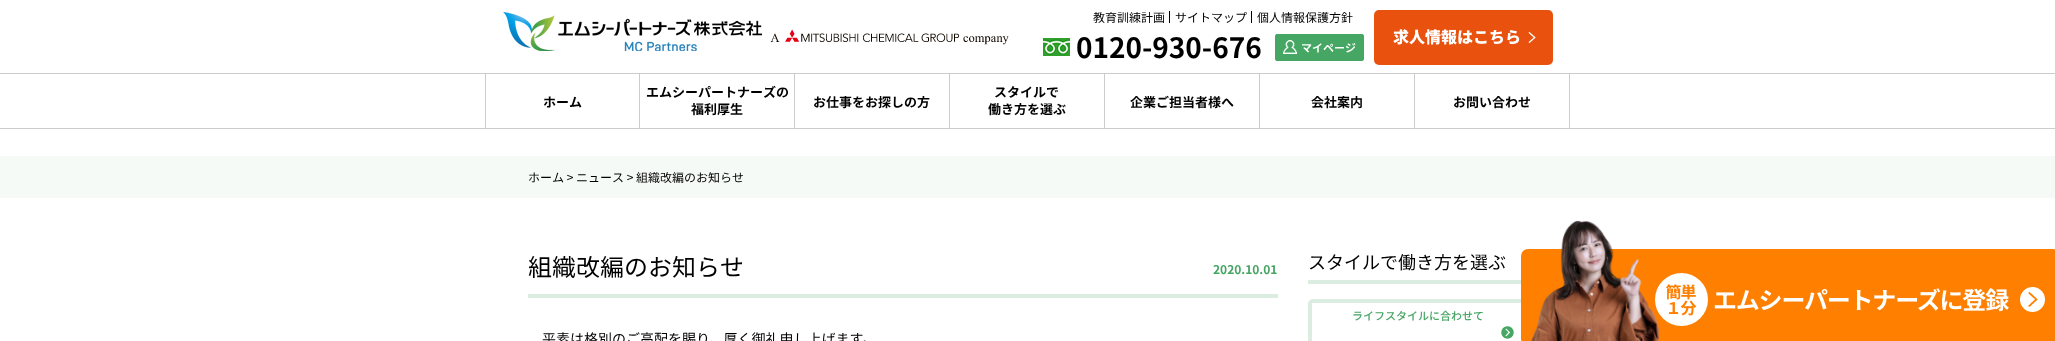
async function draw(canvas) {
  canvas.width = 2055;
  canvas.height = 341;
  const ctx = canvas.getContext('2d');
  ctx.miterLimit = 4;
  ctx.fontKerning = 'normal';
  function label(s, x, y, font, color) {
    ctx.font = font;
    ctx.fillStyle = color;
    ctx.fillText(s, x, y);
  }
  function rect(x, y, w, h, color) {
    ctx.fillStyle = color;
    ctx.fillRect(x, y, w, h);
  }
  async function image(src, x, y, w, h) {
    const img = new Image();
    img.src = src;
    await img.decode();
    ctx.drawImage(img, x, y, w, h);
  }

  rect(0, 0, 2055, 341, '#fff');
  await image('assets/img1.png', 503, 12, 259, 39);
  await image('assets/img2.png', 770, 29, 239, 16);
  label('教育訓練計画', 1093, 22, '12px Noto Sans JP', '#000');
  rect(1169, 11, 1, 12, '#000');
  label('サイトマップ', 1175, 22, '12px Noto Sans JP', '#000');
  rect(1251, 11, 1, 12, '#000');
  label('個人情報保護方針', 1257, 22, '12px Noto Sans JP', '#000');
  await image('assets/img3.png', 1043, 38, 27, 18);
  label('0120-930-676', 1076, 58, 'bold 28px Noto Sans JP', '#000');
  await image('assets/img4.png', 1275, 34, 89, 27);
  await image('assets/img5.png', 1374, 10, 179, 55);
  rect(0, 73, 2055, 1, '#ccc');
  rect(0, 128, 2055, 1, '#ccc');
  rect(639, 74, 1, 54, '#ccc');
  rect(485, 74, 1, 54, '#ccc');
  label('ホーム', 543, 107, 'bold 13px Noto Sans JP', '#000');
  rect(794, 74, 1, 54, '#ccc');
  label('エムシーパートナーズの', 646, 97, 'bold 13px Noto Sans JP', '#000');
  label('福利厚生', 691, 114, 'bold 13px Noto Sans JP', '#000');
  rect(949, 74, 1, 54, '#ccc');
  label('お仕事をお探しの方', 813, 107, 'bold 13px Noto Sans JP', '#000');
  rect(1104, 74, 1, 54, '#ccc');
  label('スタイルで', 994, 97, 'bold 13px Noto Sans JP', '#000');
  label('働き方を選ぶ', 988, 114, 'bold 13px Noto Sans JP', '#000');
  rect(1259, 74, 1, 54, '#ccc');
  label('企業ご担当者様へ', 1130, 107, 'bold 13px Noto Sans JP', '#000');
  rect(1414, 74, 1, 54, '#ccc');
  label('会社案内', 1311, 107, 'bold 13px Noto Sans JP', '#000');
  rect(1569, 74, 1, 54, '#ccc');
  label('お問い合わせ', 1453, 107, 'bold 13px Noto Sans JP', '#000');
  rect(0, 156, 2055, 42, '#f6faf7');
  label('ホーム > ニュース > 組織改編のお知らせ', 528, 182, '12px Noto Sans JP', '#000');
  rect(528, 294, 750, 4, '#daede0');
  label('組織改編のお知らせ', 528, 276, '24px Noto Sans JP', '#000');
  label('2020.10.01', 1213, 274, 'bold 12px Noto Sans JP', '#46a563');
  label('平素は格別のご高配を賜り、厚く御礼申し上げます。', 542, 344, '14px Noto Sans JP', '#000');
  rect(1308, 280, 220, 4, '#daede0');
  label('スタイルで働き方を選ぶ', 1308, 269, '18px Noto Sans JP', '#000');
  await image('assets/img6.png', 1501, 326, 13, 13);
  ctx.beginPath();
  ctx.roundRect(1310, 301, 216, 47, 3);
  ctx.strokeStyle = '#daede0';
  ctx.lineWidth = 4;
  ctx.stroke();
  label('ライフスタイルに合わせて', 1352, 320, '500 11px Noto Sans JP', '#46a563');
  await image('assets/img7.png', 1521, 220, 534, 121);
}

draw(document.querySelector('canvas'));
